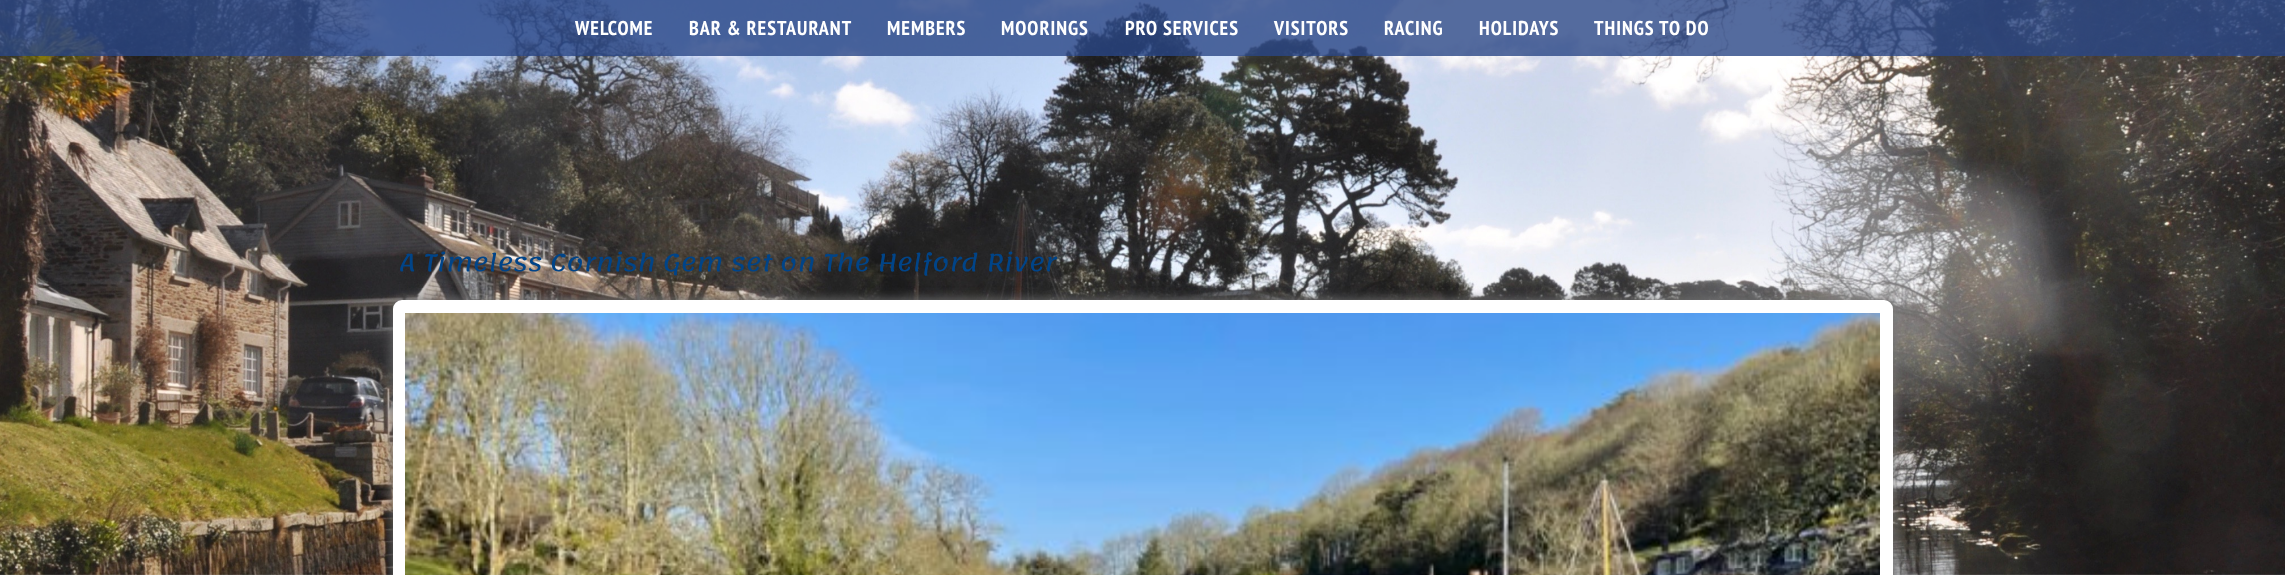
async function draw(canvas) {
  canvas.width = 2285;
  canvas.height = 575;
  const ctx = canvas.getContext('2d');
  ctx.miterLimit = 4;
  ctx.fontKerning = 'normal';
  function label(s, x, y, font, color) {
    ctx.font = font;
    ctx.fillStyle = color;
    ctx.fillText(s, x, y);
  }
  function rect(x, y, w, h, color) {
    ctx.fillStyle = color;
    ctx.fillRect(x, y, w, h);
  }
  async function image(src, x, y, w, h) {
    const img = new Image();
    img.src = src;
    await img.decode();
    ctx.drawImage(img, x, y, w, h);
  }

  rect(0, 0, 2285, 575, '#fff');
  await image('assets/img1.png', 0, 0, 2285, 575);
  rect(0, 0, 2285, 56, '#294686cc');
  ctx.letterSpacing = '1px';
  label('WELCOME', 575, 35, 'bold 20px PT Sans Narrow', '#fff');
  label('BAR & RESTAURANT', 689, 35, 'bold 20px PT Sans Narrow', '#fff');
  label('MEMBERS', 887, 35, 'bold 20px PT Sans Narrow', '#fff');
  label('MOORINGS', 1001, 35, 'bold 20px PT Sans Narrow', '#fff');
  label('PRO SERVICES', 1125, 35, 'bold 20px PT Sans Narrow', '#fff');
  label('VISITORS', 1274, 35, 'bold 20px PT Sans Narrow', '#fff');
  label('RACING', 1384, 35, 'bold 20px PT Sans Narrow', '#fff');
  label('HOLIDAYS', 1479, 35, 'bold 20px PT Sans Narrow', '#fff');
  label('THINGS TO DO', 1594, 35, 'bold 20px PT Sans Narrow', '#fff');
  ctx.letterSpacing = '0px';
  label('A Timeless Cornish Gem set on The Helford River', 399, 271, '24px Lemonada', '#048');
  ctx.fillStyle = '#777';
  ctx.filter = 'blur(6px)';
  ctx.beginPath();
  ctx.roundRect(393, 300, 1500, 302, 9);
  ctx.fill();
  ctx.filter = 'none';
  ctx.beginPath();
  ctx.roundRect(399.5, 306.5, 1487, 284, 2.5);
  ctx.strokeStyle = '#fff';
  ctx.lineWidth = 13;
  ctx.stroke();
  await image('assets/img2.png', 405, 313, 1475, 262);
}

draw(document.querySelector('canvas'));
